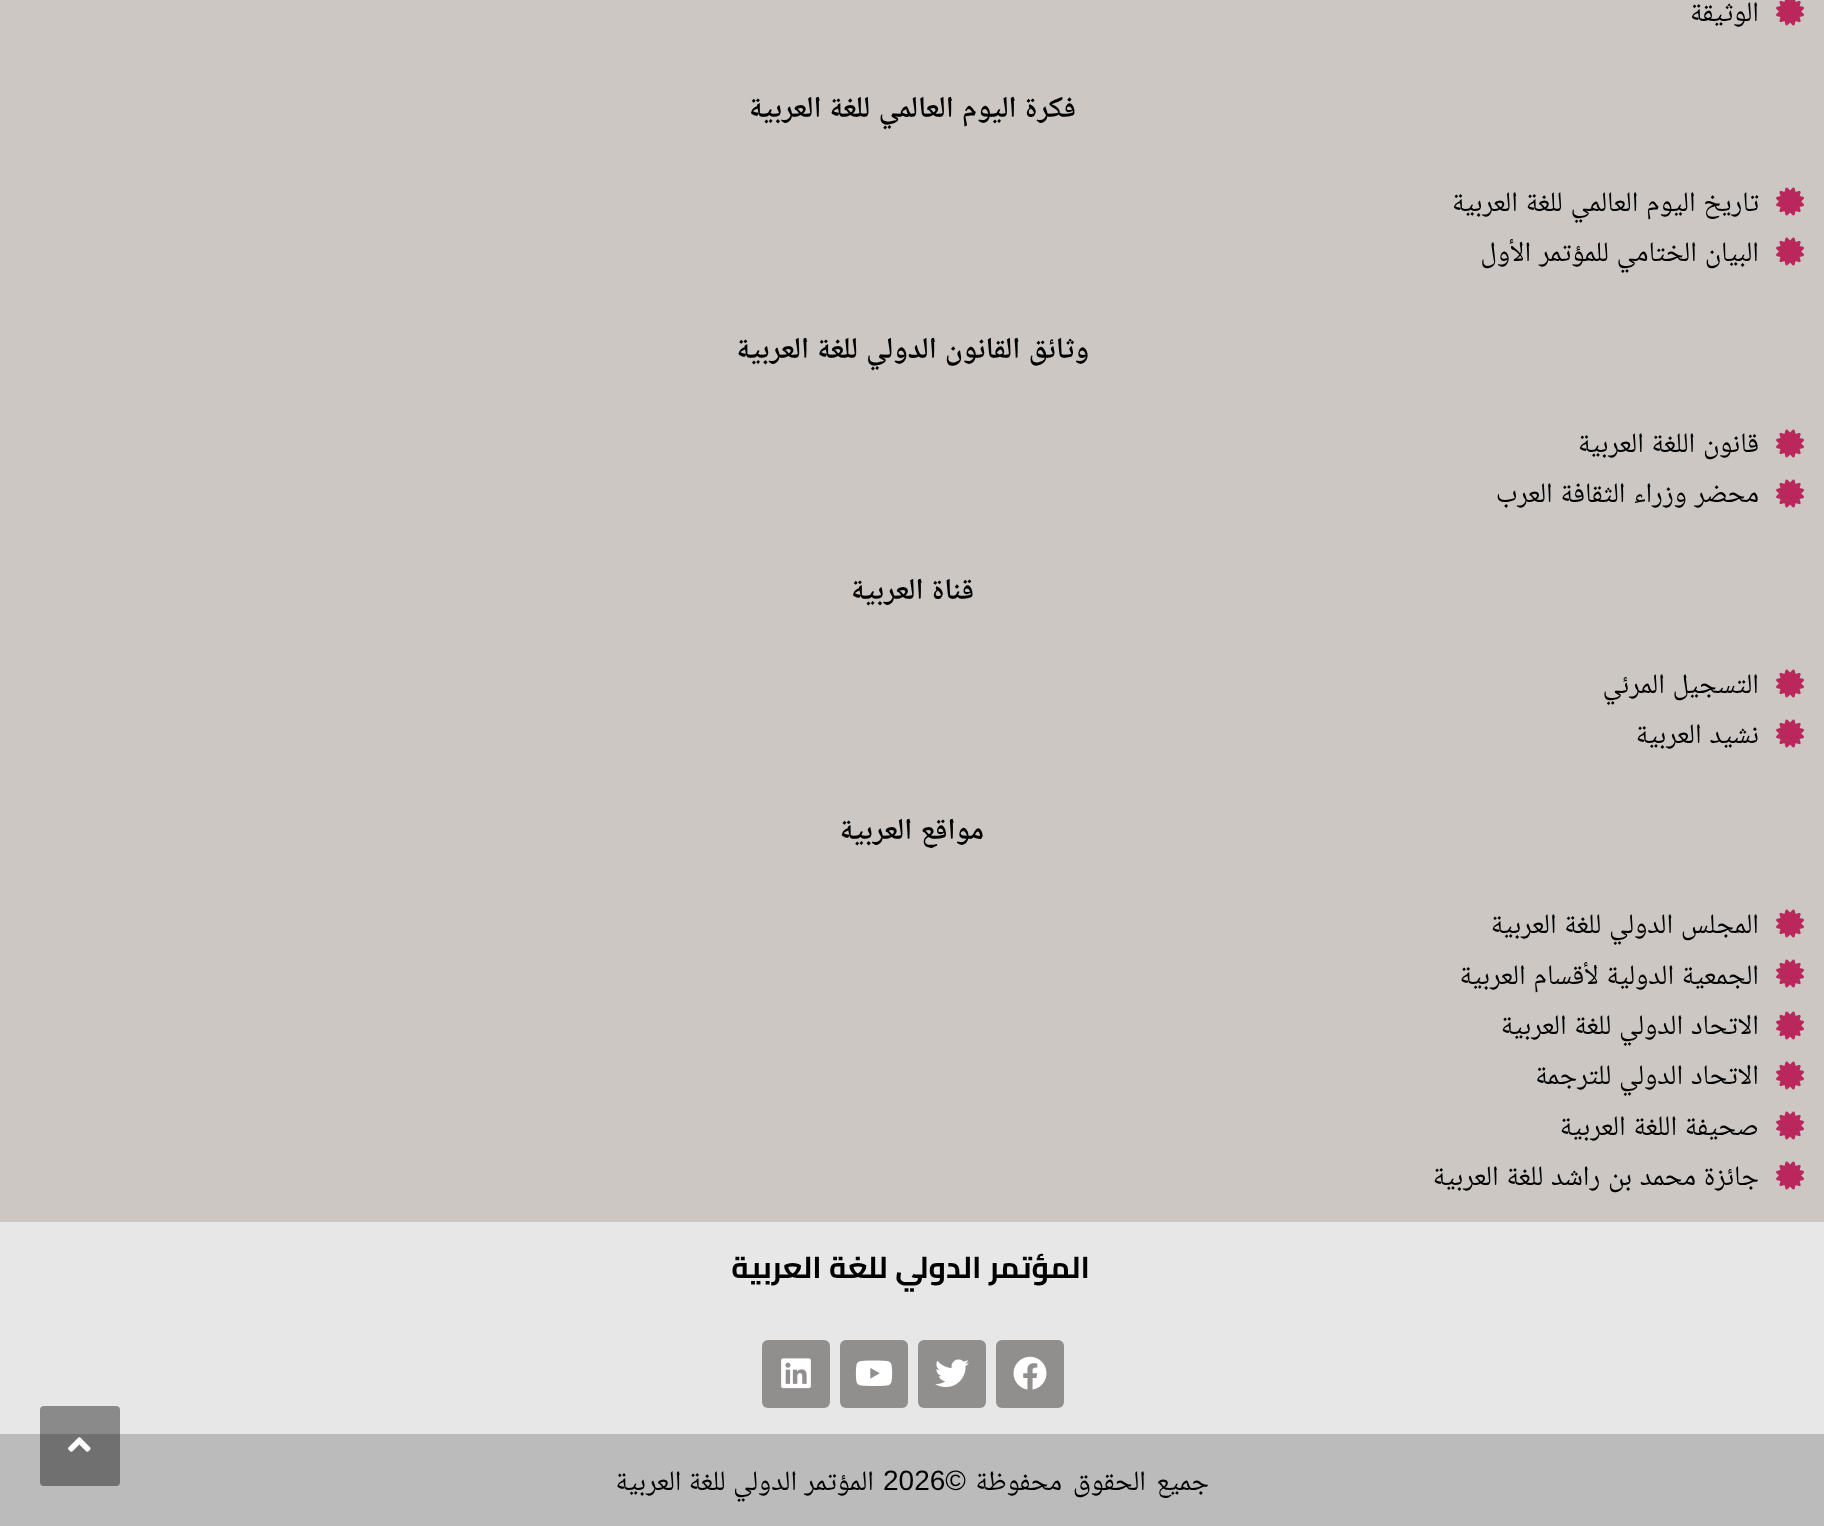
async function draw(canvas) {
  canvas.width = 1824;
  canvas.height = 1526;
  const ctx = canvas.getContext('2d');
  ctx.miterLimit = 4;
  ctx.fontKerning = 'normal';
  function label(s, x, y, font, color) {
    ctx.font = font;
    ctx.fillStyle = color;
    ctx.fillText(s, x, y);
  }
  function rect(x, y, w, h, color) {
    ctx.fillStyle = color;
    ctx.fillRect(x, y, w, h);
  }
  function roundedRect(x, y, w, h, r, color) {
    ctx.fillStyle = color;
    ctx.beginPath();
    ctx.roundRect(x, y, w, h, r);
    ctx.fill();
  }
  async function image(src, x, y, w, h) {
    const img = new Image();
    img.src = src;
    await img.decode();
    ctx.drawImage(img, x, y, w, h);
  }

  rect(0, 0, 1824, 1526, '#ccc7c2');
  await image('assets/img1.png', 1776, 0, 28, 26);
  ctx.direction = 'rtl';
  label('الوثيقة', 1759, 21, '28px Noto Naskh Arabic', '#000');
  ctx.wordSpacing = '1.5px';
  label('فكرة اليوم العالمي للغة العربية', 1076, 117, '600 30px Noto Naskh Arabic', '#000');
  await image('assets/img2.png', 1776, 187, 28, 29);
  label('تاريخ اليوم العالمي للغة العربية', 1759, 211, '28px Noto Naskh Arabic', '#000');
  await image('assets/img2.png', 1776, 237, 28, 29);
  label('البيان الختامي للمؤتمر الأول', 1759, 261, '28px Noto Naskh Arabic', '#000');
  label('وثائق القانون الدولي للغة العربية', 1089, 358, '600 30px Noto Naskh Arabic', '#000');
  await image('assets/img2.png', 1776, 429, 28, 29);
  label('قانون اللغة العربية', 1759, 452, '28px Noto Naskh Arabic', '#000');
  await image('assets/img2.png', 1776, 479, 28, 29);
  label('محضر وزراء الثقافة العرب', 1759, 502, '28px Noto Naskh Arabic', '#000');
  label('قناة العربية', 974, 599, '600 30px Noto Naskh Arabic', '#000');
  await image('assets/img2.png', 1776, 669, 28, 29);
  label('التسجيل المرئي', 1759, 693, '28px Noto Naskh Arabic', '#000');
  await image('assets/img2.png', 1776, 719, 28, 29);
  label('نشيد العربية', 1759, 743, '28px Noto Naskh Arabic', '#000');
  label('مواقع العربية', 984, 839, '600 30px Noto Naskh Arabic', '#000');
  await image('assets/img2.png', 1776, 909, 28, 29);
  label('المجلس الدولي للغة العربية', 1759, 933, '28px Noto Naskh Arabic', '#000');
  await image('assets/img2.png', 1776, 959, 28, 29);
  label('الجمعية الدولية لأقسام العربية', 1759, 984, '28px Noto Naskh Arabic', '#000');
  await image('assets/img2.png', 1776, 1011, 28, 29);
  label('الاتحاد الدولي للغة العربية', 1759, 1034, '28px Noto Naskh Arabic', '#000');
  await image('assets/img2.png', 1776, 1061, 28, 29);
  label('الاتحاد الدولي للترجمة', 1759, 1084, '28px Noto Naskh Arabic', '#000');
  await image('assets/img2.png', 1776, 1111, 28, 29);
  label('صحيفة اللغة العربية', 1759, 1135, '28px Noto Naskh Arabic', '#000');
  await image('assets/img2.png', 1776, 1161, 28, 29);
  label('جائزة محمد بن راشد للغة العربية', 1759, 1185, '28px Noto Naskh Arabic', '#000');
  rect(0, 1222, 1824, 212, '#e7e7e7');
  ctx.wordSpacing = '0px';
  label('المؤتمر الدولي للغة العربية', 1090, 1278, 'bold 30px Cairo', '#000');
  roundedRect(996, 1340, 68, 68, 6, '#918e8e');
  await image('assets/img3.png', 1013, 1356, 34, 34);
  roundedRect(918, 1340, 68, 68, 6, '#918e8e');
  await image('assets/img4.png', 935, 1359, 34, 29);
  roundedRect(840, 1340, 68, 68, 6, '#918e8e');
  await image('assets/img5.png', 855, 1360, 38, 26);
  roundedRect(762, 1340, 68, 68, 6, '#918e8e');
  await image('assets/img6.png', 781, 1358, 30, 31);
  rect(0, 1434, 1824, 92, '#bbb');
  label('جميع', 1209, 1490, '28px Noto Naskh Arabic', '#000');
  label('الحقوق', 1146, 1490, '28px Noto Naskh Arabic', '#000');
  label('محفوظة', 1062, 1490, '28px Noto Naskh Arabic', '#000');
  label('©', 966, 1490, '28px Liberation Sans', '#000');
  ctx.direction = 'ltr';
  label('2026', 883, 1490, '28px Liberation Sans', '#000');
  ctx.wordSpacing = '1px';
  ctx.direction = 'rtl';
  label('المؤتمر الدولي للغة العربية', 874, 1490, '28px Noto Naskh Arabic', '#000');
  roundedRect(40, 1406, 80, 80, 4, '#00000066');
  await image('assets/img7.png', 68, 1437, 23, 15);
}

draw(document.querySelector('canvas'));
